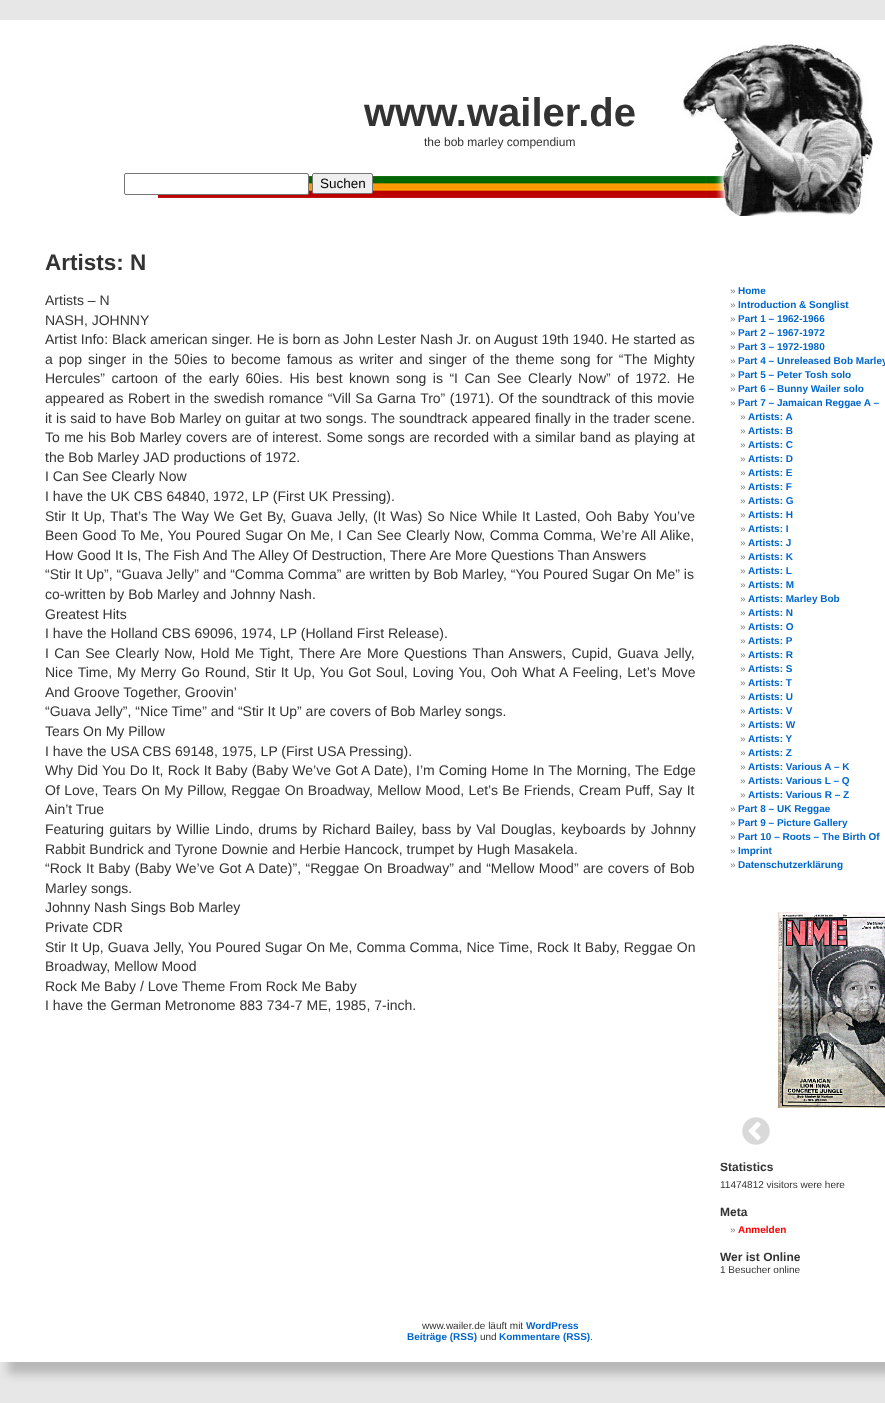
async function draw(canvas) {
  canvas.width = 885;
  canvas.height = 1403;
  const ctx = canvas.getContext('2d');
  ctx.miterLimit = 4;
  ctx.fontKerning = 'normal';
  function label(s, x, y, font, color) {
    ctx.font = font;
    ctx.fillStyle = color;
    ctx.fillText(s, x, y);
  }
  function rect(x, y, w, h, color) {
    ctx.fillStyle = color;
    ctx.fillRect(x, y, w, h);
  }
  async function image(src, x, y, w, h) {
    const img = new Image();
    img.src = src;
    await img.decode();
    ctx.drawImage(img, x, y, w, h);
  }

  rect(0, 0, 885, 1403, '#e7e7e7');
  ctx.fillStyle = '#00000033';
  ctx.filter = 'blur(5px)';
  ctx.beginPath();
  ctx.rect(8, 28, 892, 1346);
  ctx.fill();
  ctx.filter = 'none';
  rect(0, 20, 885, 1342, '#fff');
  await image('assets/img1.png', 158, 44, 715, 172);
  label('www.wailer.de', 364, 126, 'bold 40px Liberation Sans', '#333');
  label('the bob marley compendium', 424, 146, '12px Liberation Sans', '#333');
  ctx.fillStyle = '#fff';
  ctx.beginPath();
  ctx.roundRect(124.5, 173.5, 184, 21, 1.5);
  ctx.fill();
  ctx.strokeStyle = '#767676';
  ctx.stroke();
  ctx.fillStyle = '#efefef';
  ctx.beginPath();
  ctx.roundRect(312.5, 173.5, 60, 20, 1.5);
  ctx.fill();
  ctx.stroke();
  label('Suchen', 320, 188, '13.5px Liberation Sans', '#000');
  label('Artists: N', 45, 270, 'bold 22.5px Liberation Sans', '#333');
  label('Artists – N', 45, 305, '14px Liberation Sans', '#333');
  label('NASH, JOHNNY', 45, 325, '14px Liberation Sans', '#333');
  label('Artist Info: Black american singer. He is born as John Lester Nash Jr. on August 19th 1940. He started as', 45, 344, '14px Liberation Sans', '#333');
  ctx.wordSpacing = '2px';
  label('a pop singer in the 50ies to become famous as writer and singer of the theme song for “The Mighty', 45, 364, '14px Liberation Sans', '#333');
  ctx.wordSpacing = '2.6px';
  label('Hercules” cartoon of the early 60ies. His best known song is “I Can See Clearly Now” of 1972. He', 45, 383, '14px Liberation Sans', '#333');
  ctx.wordSpacing = '0.6px';
  label('appeared as Robert in the swedish romance “Vill Sa Garna Tro” (1971). Of the soundtrack of this movie', 45, 403, '14px Liberation Sans', '#333');
  ctx.wordSpacing = '0.2px';
  label('it is said to have Bob Marley on guitar at two songs. The soundtrack appeared finally in the trader scene.', 45, 423, '14px Liberation Sans', '#333');
  ctx.wordSpacing = '0.5px';
  label('To me his Bob Marley covers are of interest. Some songs are recorded with a similar band as playing at', 45, 442, '14px Liberation Sans', '#333');
  ctx.wordSpacing = '0px';
  label('the Bob Marley JAD productions of 1972.', 45, 462, '14px Liberation Sans', '#333');
  label('I Can See Clearly Now', 45, 481, '14px Liberation Sans', '#333');
  label('I have the UK CBS 64840, 1972, LP (First UK Pressing).', 45, 501, '14px Liberation Sans', '#333');
  ctx.wordSpacing = '1px';
  label('Stir It Up, That’s The Way We Get By, Guava Jelly, (It Was) So Nice While It Lasted, Ooh Baby You’ve', 45, 521, '14px Liberation Sans', '#333');
  ctx.wordSpacing = '0.6px';
  label('Been Good To Me, You Poured Sugar On Me, I Can See Clearly Now, Comma Comma, We’re All Alike,', 45, 540, '14px Liberation Sans', '#333');
  ctx.wordSpacing = '0px';
  label('How Good It Is, The Fish And The Alley Of Destruction, There Are More Questions Than Answers', 45, 560, '14px Liberation Sans', '#333');
  label('“Stir It Up”, “Guava Jelly” and “Comma Comma” are written by Bob Marley, “You Poured Sugar On Me” is', 45, 579, '14px Liberation Sans', '#333');
  label('co-written by Bob Marley and Johnny Nash.', 45, 599, '14px Liberation Sans', '#333');
  label('Greatest Hits', 45, 619, '14px Liberation Sans', '#333');
  label('I have the Holland CBS 69096, 1974, LP (Holland First Release).', 45, 638, '14px Liberation Sans', '#333');
  ctx.wordSpacing = '1.4px';
  label('I Can See Clearly Now, Hold Me Tight, There Are More Questions Than Answers, Cupid, Guava Jelly,', 45, 658, '14px Liberation Sans', '#333');
  ctx.wordSpacing = '1px';
  label('Nice Time, My Merry Go Round, Stir It Up, You Got Soul, Loving You, Ooh What A Feeling, Let’s Move', 45, 677, '14px Liberation Sans', '#333');
  ctx.wordSpacing = '0px';
  label('And Groove Together, Groovin’', 45, 697, '14px Liberation Sans', '#333');
  label('“Guava Jelly”, “Nice Time” and “Stir It Up” are covers of Bob Marley songs.', 45, 716, '14px Liberation Sans', '#333');
  label('Tears On My Pillow', 45, 736, '14px Liberation Sans', '#333');
  label('I have the USA CBS 69148, 1975, LP (First USA Pressing).', 45, 756, '14px Liberation Sans', '#333');
  ctx.wordSpacing = '0.25px';
  label('Why Did You Do It, Rock It Baby (Baby We’ve Got A Date), I’m Coming Home In The Morning, The Edge', 45, 775, '14px Liberation Sans', '#333');
  ctx.wordSpacing = '0.5px';
  label('Of Love, Tears On My Pillow, Reggae On Broadway, Mellow Mood, Let’s Be Friends, Cream Puff, Say It', 45, 795, '14px Liberation Sans', '#333');
  ctx.wordSpacing = '0px';
  label('Ain’t True', 45, 814, '14px Liberation Sans', '#333');
  ctx.wordSpacing = '1.25px';
  label('Featuring guitars by Willie Lindo, drums by Richard Bailey, bass by Val Douglas, keyboards by Johnny', 45, 834, '14px Liberation Sans', '#333');
  ctx.wordSpacing = '0px';
  label('Rabbit Bundrick and Tyrone Downie and Herbie Hancock, trumpet by Hugh Masakela.', 45, 854, '14px Liberation Sans', '#333');
  ctx.wordSpacing = '0.6px';
  label('“Rock It Baby (Baby We’ve Got A Date)”, “Reggae On Broadway” and “Mellow Mood” are covers of Bob', 45, 873, '14px Liberation Sans', '#333');
  ctx.wordSpacing = '0px';
  label('Marley songs.', 45, 893, '14px Liberation Sans', '#333');
  label('Johnny Nash Sings Bob Marley', 45, 912, '14px Liberation Sans', '#333');
  label('Private CDR', 45, 932, '14px Liberation Sans', '#333');
  ctx.wordSpacing = '0.2px';
  label('Stir It Up, Guava Jelly, You Poured Sugar On Me, Comma Comma, Nice Time, Rock It Baby, Reggae On', 45, 952, '14px Liberation Sans', '#333');
  ctx.wordSpacing = '0px';
  label('Broadway, Mellow Mood', 45, 971, '14px Liberation Sans', '#333');
  label('Rock Me Baby / Love Theme From Rock Me Baby', 45, 991, '14px Liberation Sans', '#333');
  label('I have the German Metronome 883 734-7 ME, 1985, 7-inch.', 45, 1010, '14px Liberation Sans', '#333');
  label('»', 730, 294, '10px Liberation Sans', '#777');
  label('Home', 738, 294, 'bold 10px Liberation Sans', '#06c');
  label('»', 730, 308, '10px Liberation Sans', '#777');
  label('Introduction & Songlist', 738, 308, 'bold 10px Liberation Sans', '#06c');
  label('»', 730, 322, '10px Liberation Sans', '#777');
  label('Part 1 – 1962-1966', 738, 322, 'bold 10px Liberation Sans', '#06c');
  label('»', 730, 336, '10px Liberation Sans', '#777');
  label('Part 2 – 1967-1972', 738, 336, 'bold 10px Liberation Sans', '#06c');
  label('»', 730, 350, '10px Liberation Sans', '#777');
  label('Part 3 – 1972-1980', 738, 350, 'bold 10px Liberation Sans', '#06c');
  label('»', 730, 364, '10px Liberation Sans', '#777');
  label('Part 4 – Unreleased Bob Marley', 738, 364, 'bold 10px Liberation Sans', '#06c');
  label('»', 730, 378, '10px Liberation Sans', '#777');
  label('Part 5 – Peter Tosh solo', 738, 378, 'bold 10px Liberation Sans', '#06c');
  label('»', 730, 392, '10px Liberation Sans', '#777');
  label('Part 6 – Bunny Wailer solo', 738, 392, 'bold 10px Liberation Sans', '#06c');
  label('»', 730, 406, '10px Liberation Sans', '#777');
  label('Part 7 – Jamaican Reggae A –', 738, 406, 'bold 10px Liberation Sans', '#06c');
  label('»', 740, 420, '10px Liberation Sans', '#777');
  label('Artists: A', 748, 420, 'bold 10px Liberation Sans', '#06c');
  label('»', 740, 434, '10px Liberation Sans', '#777');
  label('Artists: B', 748, 434, 'bold 10px Liberation Sans', '#06c');
  label('»', 740, 448, '10px Liberation Sans', '#777');
  label('Artists: C', 748, 448, 'bold 10px Liberation Sans', '#06c');
  label('»', 740, 462, '10px Liberation Sans', '#777');
  label('Artists: D', 748, 462, 'bold 10px Liberation Sans', '#06c');
  label('»', 740, 476, '10px Liberation Sans', '#777');
  label('Artists: E', 748, 476, 'bold 10px Liberation Sans', '#06c');
  label('»', 740, 490, '10px Liberation Sans', '#777');
  label('Artists: F', 748, 490, 'bold 10px Liberation Sans', '#06c');
  label('»', 740, 504, '10px Liberation Sans', '#777');
  label('Artists: G', 748, 504, 'bold 10px Liberation Sans', '#06c');
  label('»', 740, 518, '10px Liberation Sans', '#777');
  label('Artists: H', 748, 518, 'bold 10px Liberation Sans', '#06c');
  label('»', 740, 532, '10px Liberation Sans', '#777');
  label('Artists: I', 748, 532, 'bold 10px Liberation Sans', '#06c');
  label('»', 740, 546, '10px Liberation Sans', '#777');
  label('Artists: J', 748, 546, 'bold 10px Liberation Sans', '#06c');
  label('»', 740, 560, '10px Liberation Sans', '#777');
  label('Artists: K', 748, 560, 'bold 10px Liberation Sans', '#06c');
  label('»', 740, 574, '10px Liberation Sans', '#777');
  label('Artists: L', 748, 574, 'bold 10px Liberation Sans', '#06c');
  label('»', 740, 588, '10px Liberation Sans', '#777');
  label('Artists: M', 748, 588, 'bold 10px Liberation Sans', '#06c');
  label('»', 740, 602, '10px Liberation Sans', '#777');
  label('Artists: Marley Bob', 748, 602, 'bold 10px Liberation Sans', '#06c');
  label('»', 740, 616, '10px Liberation Sans', '#777');
  label('Artists: N', 748, 616, 'bold 10px Liberation Sans', '#06c');
  label('»', 740, 630, '10px Liberation Sans', '#777');
  label('Artists: O', 748, 630, 'bold 10px Liberation Sans', '#06c');
  label('»', 740, 644, '10px Liberation Sans', '#777');
  label('Artists: P', 748, 644, 'bold 10px Liberation Sans', '#06c');
  label('»', 740, 658, '10px Liberation Sans', '#777');
  label('Artists: R', 748, 658, 'bold 10px Liberation Sans', '#06c');
  label('»', 740, 672, '10px Liberation Sans', '#777');
  label('Artists: S', 748, 672, 'bold 10px Liberation Sans', '#06c');
  label('»', 740, 686, '10px Liberation Sans', '#777');
  label('Artists: T', 748, 686, 'bold 10px Liberation Sans', '#06c');
  label('»', 740, 700, '10px Liberation Sans', '#777');
  label('Artists: U', 748, 700, 'bold 10px Liberation Sans', '#06c');
  label('»', 740, 714, '10px Liberation Sans', '#777');
  label('Artists: V', 748, 714, 'bold 10px Liberation Sans', '#06c');
  label('»', 740, 728, '10px Liberation Sans', '#777');
  label('Artists: W', 748, 728, 'bold 10px Liberation Sans', '#06c');
  label('»', 740, 742, '10px Liberation Sans', '#777');
  label('Artists: Y', 748, 742, 'bold 10px Liberation Sans', '#06c');
  label('»', 740, 756, '10px Liberation Sans', '#777');
  label('Artists: Z', 748, 756, 'bold 10px Liberation Sans', '#06c');
  label('»', 740, 770, '10px Liberation Sans', '#777');
  label('Artists: Various A – K', 748, 770, 'bold 10px Liberation Sans', '#06c');
  label('»', 740, 784, '10px Liberation Sans', '#777');
  label('Artists: Various L – Q', 748, 784, 'bold 10px Liberation Sans', '#06c');
  label('»', 740, 798, '10px Liberation Sans', '#777');
  label('Artists: Various R – Z', 748, 798, 'bold 10px Liberation Sans', '#06c');
  label('»', 730, 812, '10px Liberation Sans', '#777');
  label('Part 8 – UK Reggae', 738, 812, 'bold 10px Liberation Sans', '#06c');
  label('»', 730, 826, '10px Liberation Sans', '#777');
  label('Part 9 – Picture Gallery', 738, 826, 'bold 10px Liberation Sans', '#06c');
  label('»', 730, 840, '10px Liberation Sans', '#777');
  label('Part 10 – Roots – The Birth Of', 738, 840, 'bold 10px Liberation Sans', '#06c');
  label('»', 730, 854, '10px Liberation Sans', '#777');
  label('Imprint', 738, 854, 'bold 10px Liberation Sans', '#06c');
  label('»', 730, 868, '10px Liberation Sans', '#777');
  label('Datenschutzerklärung', 738, 868, 'bold 10px Liberation Sans', '#06c');
  await image('assets/img2.png', 778, 912, 107, 196);
  await image('assets/img3.png', 742, 1117, 28, 28);
  label('Statistics', 720, 1171, 'bold 12px Liberation Sans', '#333');
  label('11474812 visitors were here', 720, 1188, '10px Liberation Sans', '#333');
  label('Meta', 720, 1216, 'bold 12px Liberation Sans', '#333');
  label('»', 730, 1233, '10px Liberation Sans', '#777');
  label('Anmelden', 738, 1233, 'bold 10px Liberation Sans', '#f00');
  label('Wer ist Online', 720, 1261, 'bold 12px Liberation Sans', '#333');
  label('1 Besucher online', 720, 1273, '10px Liberation Sans', '#333');
  label('www.wailer.de läuft mit', 422, 1329, '10px Liberation Sans', '#333');
  label('WordPress', 526, 1329, 'bold 10px Liberation Sans', '#06c');
  label('Beiträge (RSS)', 407, 1340, 'bold 10px Liberation Sans', '#06c');
  label('und', 480, 1340, '10px Liberation Sans', '#333');
  label('Kommentare (RSS)', 499, 1340, 'bold 10px Liberation Sans', '#06c');
  label('.', 590, 1340, '10px Liberation Sans', '#333');
}

draw(document.querySelector('canvas'));
